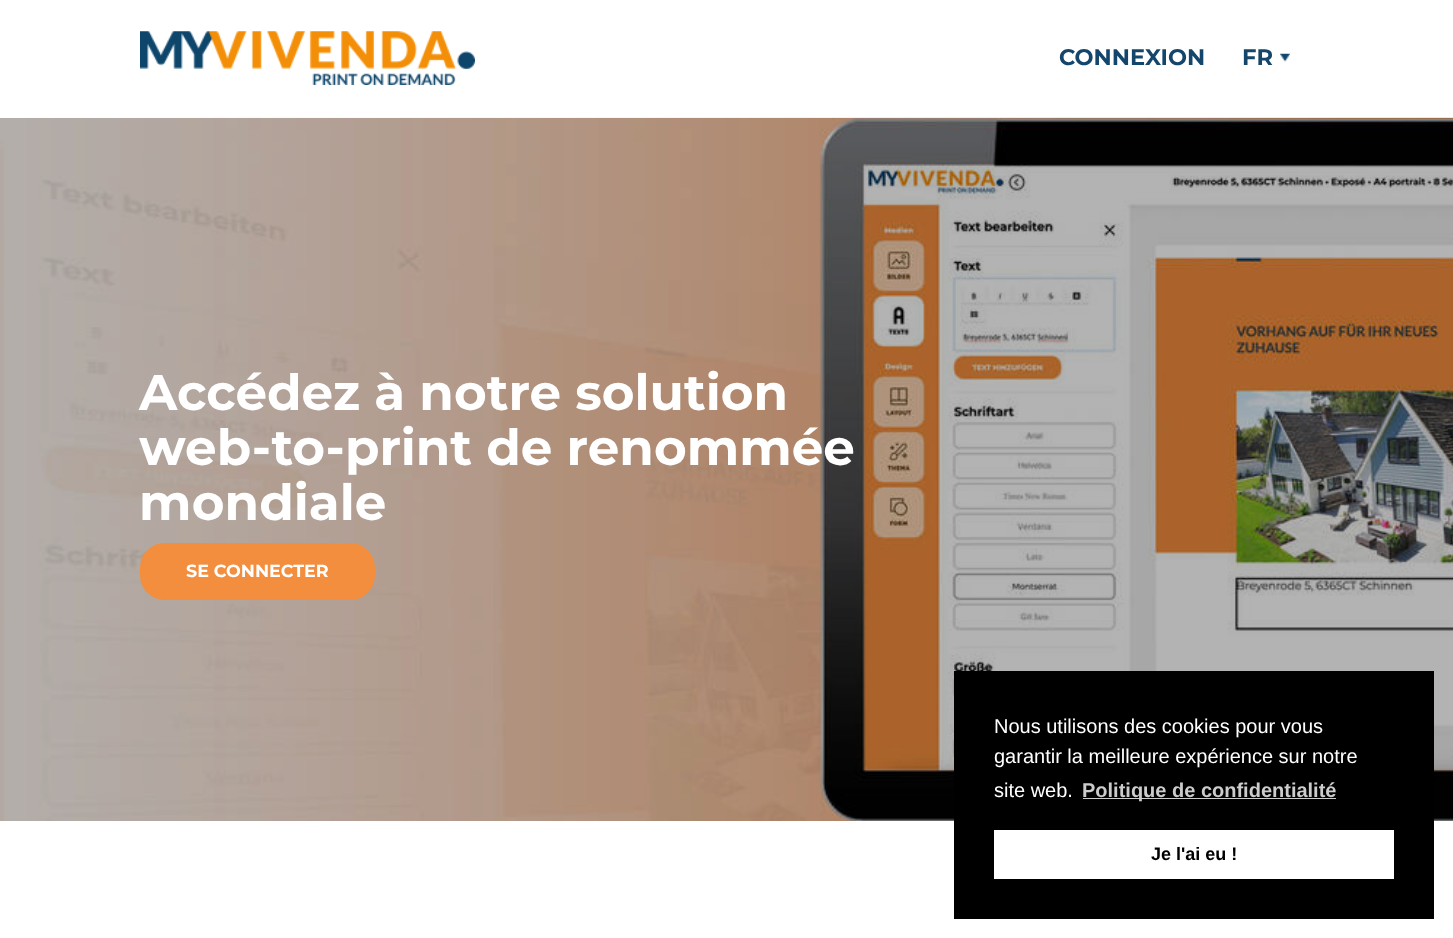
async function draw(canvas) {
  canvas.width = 1453;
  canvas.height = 938;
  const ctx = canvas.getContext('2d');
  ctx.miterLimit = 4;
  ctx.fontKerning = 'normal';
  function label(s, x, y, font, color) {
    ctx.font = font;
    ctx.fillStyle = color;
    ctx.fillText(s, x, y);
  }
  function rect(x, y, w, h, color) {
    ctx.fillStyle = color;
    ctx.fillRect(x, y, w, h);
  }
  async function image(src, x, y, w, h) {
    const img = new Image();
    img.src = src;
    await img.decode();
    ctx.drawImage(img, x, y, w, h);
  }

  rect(0, 0, 1453, 938, '#fff');
  await image('assets/img1.png', 140, 31, 335, 54);
  label('CONNEXION', 1059, 65, 'bold 22.5px Montserrat', '#14456b');
  label('FR', 1242, 65, 'bold 22.5px Montserrat', '#14456b');
  await image('assets/img2.png', 1280, 53, 10, 9);
  await image('assets/img3.png', 0, 117, 1453, 704);
  label('Accédez à notre solution', 139, 410, 'bold 50px Montserrat', '#fff');
  label('web-to-print de renommée', 139, 465, 'bold 50px Montserrat', '#fff');
  label('mondiale', 139, 520, 'bold 50px Montserrat', '#fff');
  ctx.fillStyle = '#f28e3d';
  ctx.beginPath();
  ctx.roundRect(141.5, 544.5, 232, 54, 23.5);
  ctx.fill();
  ctx.strokeStyle = '#f28e3d';
  ctx.lineWidth = 3;
  ctx.stroke();
  label('SE CONNECTER', 186, 577, 'bold 17.5px Montserrat', '#fff');
  rect(954, 671, 480, 248, '#000');
  label('Nous utilisons des cookies pour vous', 994, 733, '20px Liberation Sans', '#fff');
  label('garantir la meilleure expérience sur notre', 994, 763, '20px Liberation Sans', '#fff');
  label('site web.', 994, 797, '20px Liberation Sans', '#fff');
  rect(1083, 798, 253, 1, '#ccc');
  label('Politique de confidentialité', 1082, 797, 'bold 20px Liberation Sans', '#ccc');
  rect(994, 830, 400, 49, '#fff');
  label('Je l\'ai eu !', 1151, 860, 'bold 18px Liberation Sans', '#000');
}

draw(document.querySelector('canvas'));
